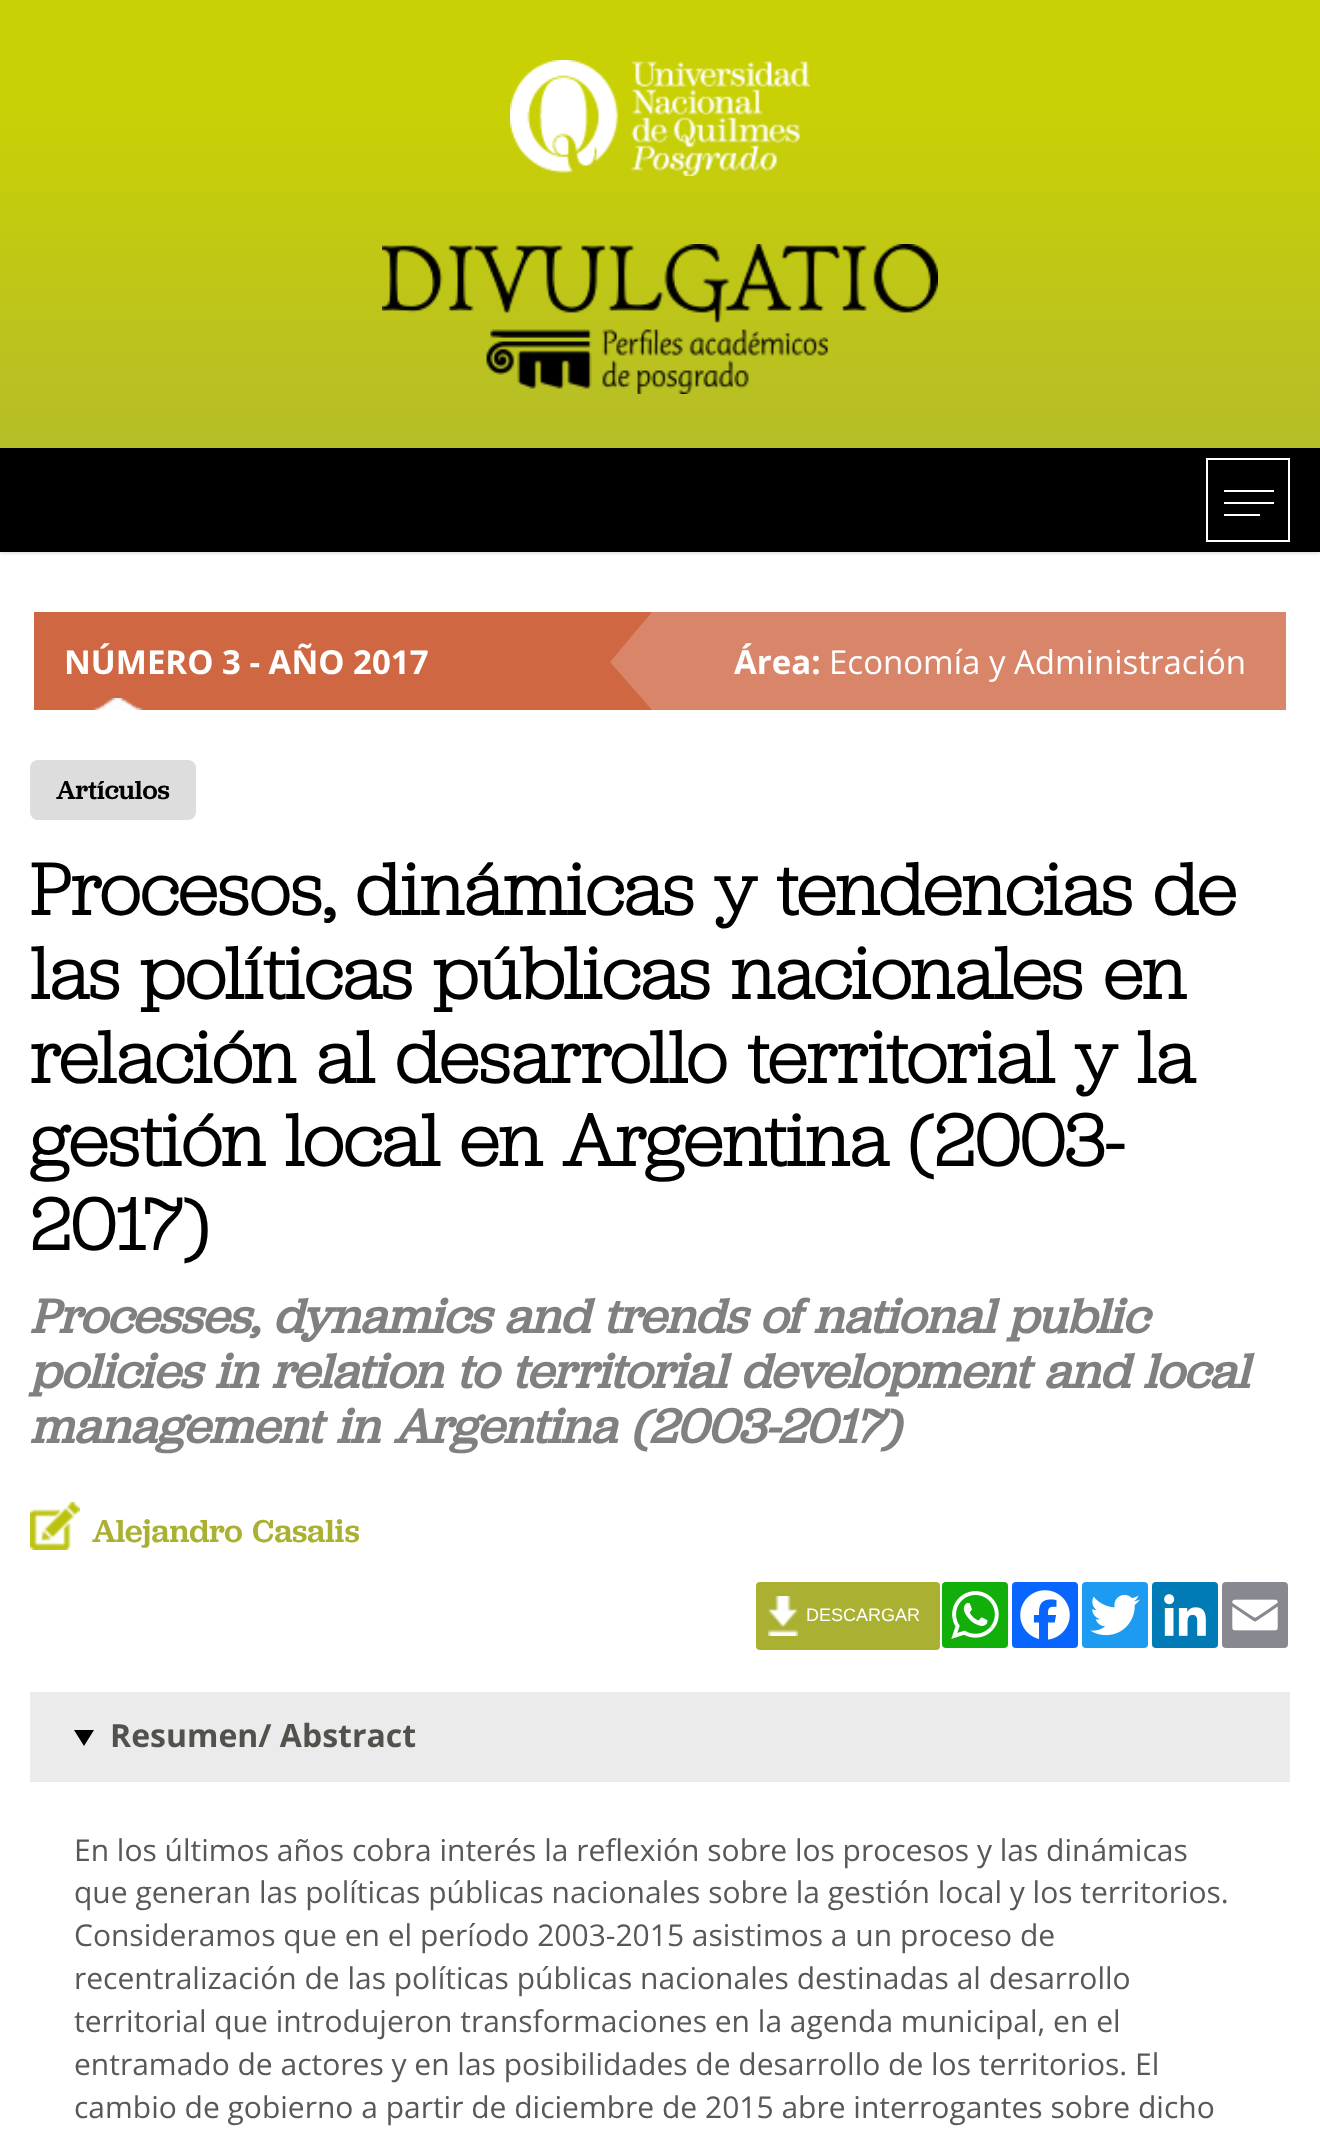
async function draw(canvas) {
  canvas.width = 1320;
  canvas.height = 2133;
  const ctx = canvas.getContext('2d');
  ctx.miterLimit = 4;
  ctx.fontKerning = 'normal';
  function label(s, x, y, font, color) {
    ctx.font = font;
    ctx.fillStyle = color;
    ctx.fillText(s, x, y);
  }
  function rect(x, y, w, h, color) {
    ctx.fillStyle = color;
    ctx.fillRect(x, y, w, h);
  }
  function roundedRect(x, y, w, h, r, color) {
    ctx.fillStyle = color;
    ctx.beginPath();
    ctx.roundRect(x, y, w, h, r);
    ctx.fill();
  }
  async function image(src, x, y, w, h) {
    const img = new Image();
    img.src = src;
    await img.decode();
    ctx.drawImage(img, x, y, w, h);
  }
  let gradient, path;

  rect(0, 0, 1320, 2133, '#fff');
  ctx.fillStyle = '#0000001a';
  ctx.filter = 'blur(1px)';
  ctx.beginPath();
  ctx.rect(0, 2, 1320, 552);
  ctx.fill();
  ctx.filter = 'none';
  gradient = ctx.createLinearGradient(660, 0, 660, 552);
  gradient.addColorStop(0.18, '#c9d104');
  gradient.addColorStop(1, '#b0b733');
  ctx.fillStyle = gradient;
  ctx.fillRect(0, 0, 1320, 448);
  await image('assets/img1.png', 510, 60, 300, 116);
  await image('assets/img2.png', 382, 244, 556, 150);
  rect(0, 448, 1320, 104, '#000');
  ctx.strokeStyle = '#fff';
  ctx.lineWidth = 2;
  ctx.strokeRect(1207, 459, 82, 82);
  rect(1224, 490, 50, 2, '#fff');
  rect(1224, 502, 50, 2, '#fff');
  rect(1224, 514, 36, 2, '#fff');
  rect(34, 612, 618, 98, '#d06743');
  label('NÚMERO 3 - AÑO 2017', 64, 674, 'bold 33px Open Sans', '#fff');
  rect(652, 612, 634, 98, '#d98569');
  path = new Path2D('M652 612V710L610 662Z');
  ctx.fill(path);
  label('Área:', 734, 674, 'bold 33px Open Sans', '#fff');
  label('Economía y Administración', 829, 674, '33px Open Sans', '#fff');
  await image('assets/img3.png', 92, 698, 52, 12);
  roundedRect(30, 760, 166, 60, 8, '#dedddd');
  label('Artículos', 56, 799, '500 27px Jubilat', '#000');
  ctx.wordSpacing = '2.5px';
  label('Procesos, dinámicas y tendencias de', 30, 915, 'bold 76px Jubilat', '#000');
  label('las políticas públicas nacionales en', 30, 999, 'bold 76px Jubilat', '#000');
  ctx.wordSpacing = '2.75px';
  label('relación al desarrollo territorial y la', 30, 1083, 'bold 76px Jubilat', '#000');
  ctx.wordSpacing = '2px';
  label('gestión local en Argentina (2003-', 30, 1166, 'bold 76px Jubilat', '#000');
  ctx.wordSpacing = '0px';
  label('2017)', 30, 1250, 'bold 76px Jubilat', '#000');
  ctx.wordSpacing = '1.5px';
  label('Processes, dynamics and trends of national public', 30, 1333, 'italic bold 50px Jubilat', '#808080');
  ctx.wordSpacing = '2px';
  label('policies in relation to territorial development and local', 30, 1388, 'italic bold 50px Jubilat', '#808080');
  ctx.wordSpacing = '2.5px';
  label('management in Argentina (2003-2017)', 30, 1443, 'italic bold 50px Jubilat', '#808080');
  await image('assets/img4.png', 30, 1502, 50, 48);
  ctx.wordSpacing = '2px';
  label('Alejandro Casalis', 92, 1542, '500 33px Jubilat', '#aab032');
  roundedRect(756, 1582, 184, 68, 4, '#aab032');
  await image('assets/img5.png', 768, 1596, 30, 40);
  ctx.wordSpacing = '0px';
  label('DESCARGAR', 806, 1621, '18px Liberation Sans', '#fff');
  roundedRect(942, 1582, 66, 66, 4, '#12af0a');
  await image('assets/img6.png', 951, 1591, 48, 48);
  roundedRect(1012, 1582, 66, 66, 4, '#0866ff');
  await image('assets/img7.png', 1020, 1590, 50, 50);
  roundedRect(1082, 1582, 66, 66, 4, '#1d9bf0');
  await image('assets/img8.png', 1090, 1594, 50, 42);
  roundedRect(1152, 1582, 66, 66, 4, '#007bb5');
  await image('assets/img9.png', 1164, 1594, 42, 42);
  roundedRect(1222, 1582, 66, 66, 4, '#888990');
  await image('assets/img10.png', 1232, 1599, 46, 32);
  rect(30, 1692, 1260, 90, '#ecebec');
  ctx.fillStyle = '#000';
  path = new Path2D('M74 1730H94L84 1746Z');
  ctx.fill(path);
  label('Resumen/ Abstract', 110, 1747, 'bold 32px Open Sans', '#52524d');
  label('En los últimos años cobra interés la reflexión sobre los procesos y las dinámicas', 74, 1861, '30px Open Sans', '#58585a');
  label('que generan las políticas públicas nacionales sobre la gestión local y los territorios.', 74, 1903, '30px Open Sans', '#58585a');
  label('Consideramos que en el período 2003-2015 asistimos a un proceso de', 74, 1946, '30px Open Sans', '#58585a');
  label('recentralización de las políticas públicas nacionales destinadas al desarrollo', 74, 1989, '30px Open Sans', '#58585a');
  label('territorial que introdujeron transformaciones en la agenda municipal, en el', 74, 2032, '30px Open Sans', '#58585a');
  label('entramado de actores y en las posibilidades de desarrollo de los territorios. El', 74, 2075, '30px Open Sans', '#58585a');
  label('cambio de gobierno a partir de diciembre de 2015 abre interrogantes sobre dicho', 74, 2118, '30px Open Sans', '#58585a');
}

draw(document.querySelector('canvas'));
